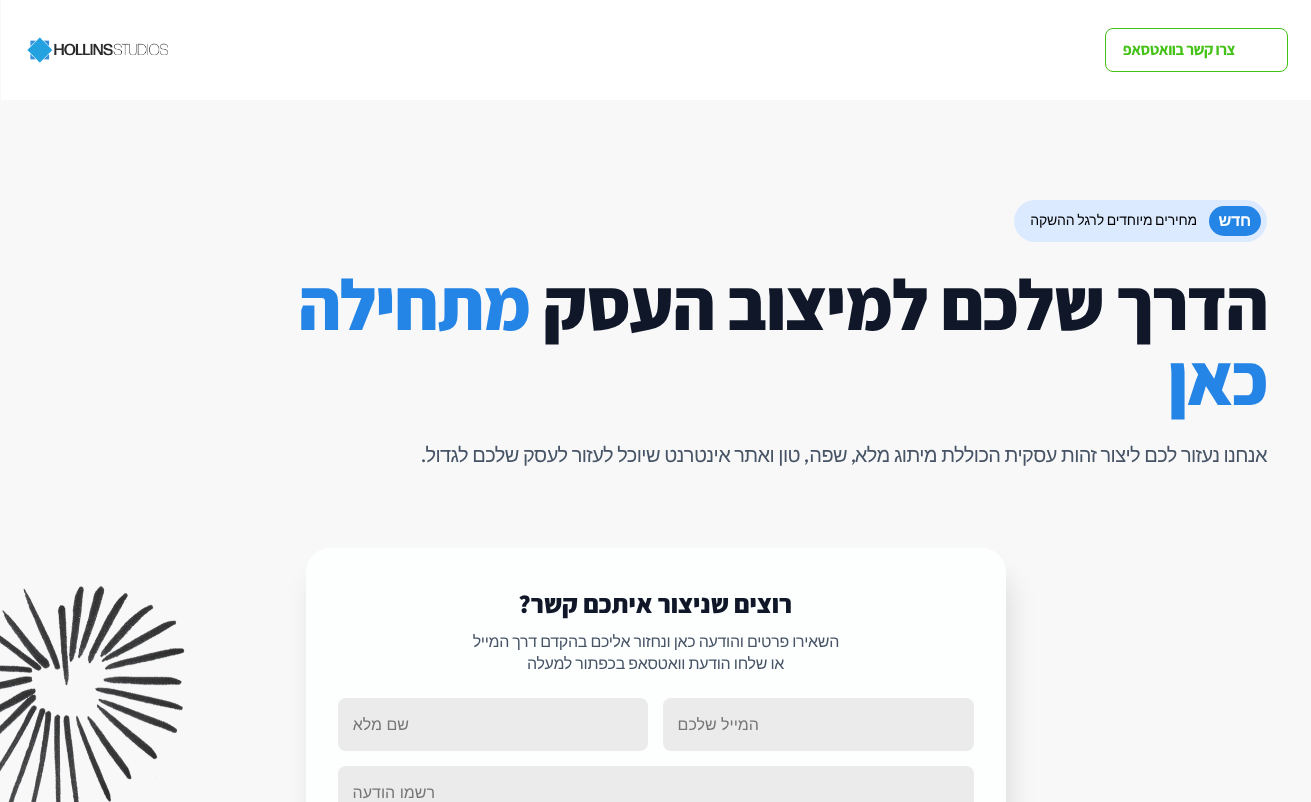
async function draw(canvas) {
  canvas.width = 1311;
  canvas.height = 802;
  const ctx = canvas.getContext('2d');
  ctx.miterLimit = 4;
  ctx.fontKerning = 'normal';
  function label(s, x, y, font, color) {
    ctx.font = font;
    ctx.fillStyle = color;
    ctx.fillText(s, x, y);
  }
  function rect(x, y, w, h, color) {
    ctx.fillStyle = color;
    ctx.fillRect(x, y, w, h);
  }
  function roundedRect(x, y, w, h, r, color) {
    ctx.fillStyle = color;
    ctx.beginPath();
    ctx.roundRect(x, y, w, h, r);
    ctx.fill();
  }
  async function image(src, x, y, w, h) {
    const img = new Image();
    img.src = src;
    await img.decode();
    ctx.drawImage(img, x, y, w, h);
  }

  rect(0, 0, 1311, 802, '#f8f8f8');
  rect(1, 0, 1310, 100, '#fff');
  ctx.beginPath();
  ctx.roundRect(1105.5, 28.5, 182, 43, 7.5);
  ctx.strokeStyle = '#45c217';
  ctx.stroke();
  ctx.letterSpacing = '-0.5px';
  ctx.direction = 'rtl';
  label('צרו קשר בוואטסאפ', 1235, 55, 'bold 16px Assistant', '#45c217');
  await image('assets/img1.png', 27, 37, 141, 26);
  roundedRect(1014, 200, 253, 42, 21, '#dbeaff');
  roundedRect(1209, 206, 52, 30, 15, '#2585e6');
  ctx.letterSpacing = '-0.32px';
  label('חדש', 1251, 226, 'bold 16px Liberation Sans', '#fff');
  ctx.letterSpacing = '-0.15px';
  ctx.wordSpacing = '-1px';
  label('מחירים מיוחדים לרגל ההשקה', 1197, 225, '14px Liberation Sans', '#000');
  ctx.letterSpacing = '-1px';
  ctx.wordSpacing = '0px';
  label('הדרך שלכם למיצוב העסק', 1267, 330, '800 72px Assistant', '#0f1728');
  label('מתחילה', 530, 330, '800 72px Assistant', '#2585e6');
  label('כאן', 1267, 405, '800 72px Assistant', '#2585e6');
  ctx.letterSpacing = '-0.6px';
  ctx.wordSpacing = '-0.75px';
  label('אנחנו נעזור לכם ליצור זהות עסקית הכוללת מיתוג מלא', 1267, 462, '20px Liberation Sans', '#475466');
  ctx.wordSpacing = '0px';
  label(',', 856, 462, '500 20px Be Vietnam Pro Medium', '#475466');
  label('שפה', 847, 462, '20px Liberation Sans', '#475466');
  ctx.wordSpacing = '-0.75px';
  label('טון ואתר אינטרנט שיוכל לעזור לעסק שלכם לגדול', 800, 462, '20px Liberation Sans', '#475466');
  ctx.wordSpacing = '0px';
  label(',', 809, 462, '500 20px Be Vietnam Pro Medium', '#475466');
  label('.', 426, 462, '500 20px Be Vietnam Pro Medium', '#475466');
  ctx.fillStyle = '#0000001a';
  ctx.filter = 'blur(12.5px)';
  ctx.beginPath();
  ctx.roundRect(311, 573, 700, 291, 24);
  ctx.fill();
  ctx.filter = 'none';
  roundedRect(306, 548, 700, 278, 24, '#fdffff');
  ctx.letterSpacing = '0px';
  label('רוצים שניצור איתכם קשר?', 792, 613, '800 26px Assistant', '#0f1728');
  ctx.letterSpacing = '-0.32px';
  ctx.wordSpacing = '-0.75px';
  label('השאירו פרטים והודעה כאן ונחזור אליכם בהקדם דרך המייל', 839, 647, '16px Liberation Sans', '#475466');
  label('או שלחו הודעת וואטסאפ בכפתור למעלה', 784, 669, '16px Liberation Sans', '#475466');
  roundedRect(663, 698, 311, 53, 8, '#ebebeb');
  ctx.letterSpacing = '0px';
  ctx.wordSpacing = '0px';
  label('המייל שלכם', 759, 730, '16px Liberation Sans', '#767676');
  roundedRect(338, 698, 310, 53, 8, '#ebebeb');
  label('שם מלא', 409, 730, '16px Liberation Sans', '#767676');
  roundedRect(338, 766, 636, 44, 8, '#ebebeb');
  label('רשמו הודעה', 435, 798, '16px Liberation Sans', '#767676');
  await image('assets/img2.png', 0, 586, 185, 216);
}

draw(document.querySelector('canvas'));
